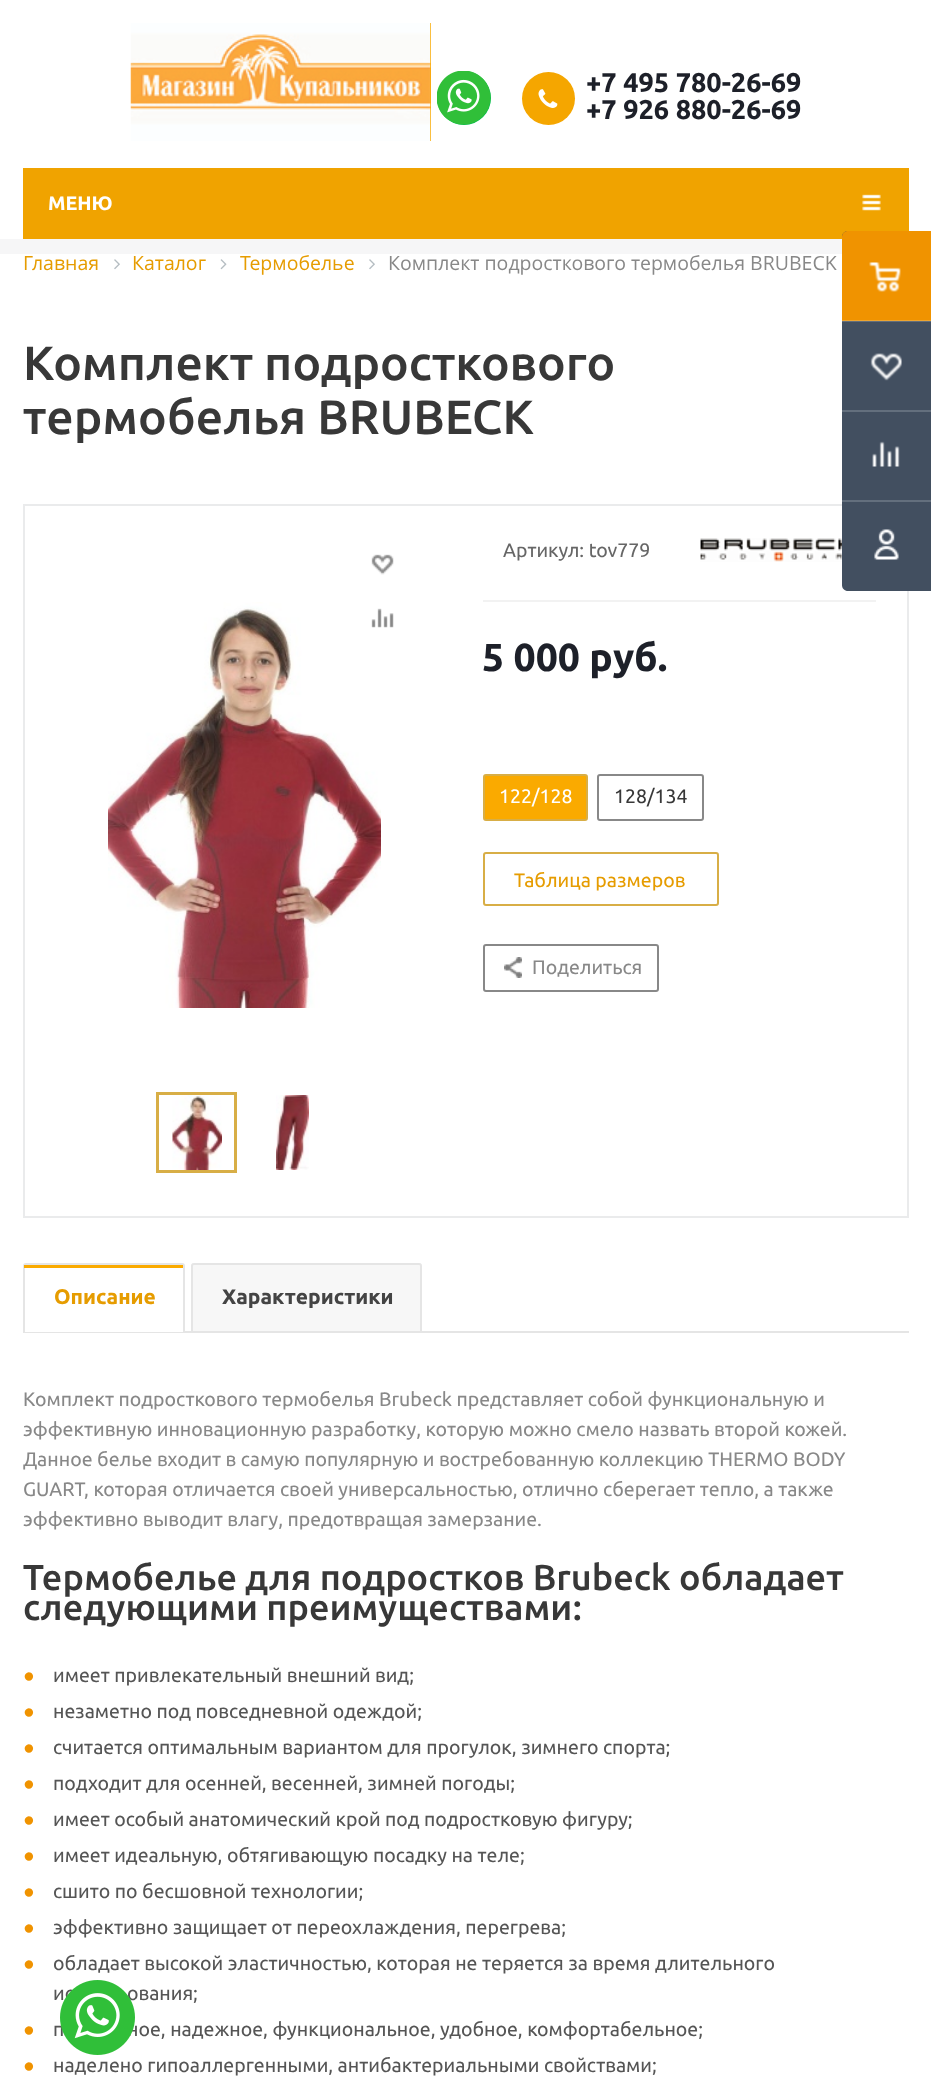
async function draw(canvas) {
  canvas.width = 931;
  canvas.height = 2080;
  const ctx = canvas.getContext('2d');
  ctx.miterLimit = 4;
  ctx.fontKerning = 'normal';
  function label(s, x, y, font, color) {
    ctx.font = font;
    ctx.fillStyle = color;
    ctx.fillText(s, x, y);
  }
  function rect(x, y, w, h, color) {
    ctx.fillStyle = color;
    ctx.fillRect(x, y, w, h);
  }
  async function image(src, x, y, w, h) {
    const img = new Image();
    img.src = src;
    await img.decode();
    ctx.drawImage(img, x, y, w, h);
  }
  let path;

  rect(0, 0, 931, 2080, '#f6f6f7');
  rect(0, 0, 931, 239, '#fff');
  rect(430, 23, 1, 118, '#faaa00');
  await image('assets/img1.png', 130, 23, 301, 118);
  ctx.fillStyle = '#00bd4c';
  ctx.beginPath();
  ctx.arc(464, 98, 27, 0, 2 * Math.PI);
  ctx.fill();
  await image('assets/img2.png', 437, 71, 54, 54);
  ctx.fillStyle = '#f5a600';
  ctx.beginPath();
  ctx.arc(548.5, 98.5, 26.5, 0, 2 * Math.PI);
  ctx.fill();
  await image('assets/img3.png', 538, 89, 20, 19);
  label('+7 495 780-26-69', 586, 92, 'bold 27px Ubuntu', '#1d2029');
  label('+7 926 880-26-69', 586, 119, 'bold 27px Ubuntu', '#1d2029');
  rect(23, 168, 886, 71, '#f0a300');
  rect(0, 254, 931, 1826, '#fff');
  ctx.strokeStyle = '#eaebec';
  ctx.lineWidth = 2;
  ctx.strokeRect(24, 505, 884, 712);
  ctx.fillStyle = '#424f60';
  path = new Path2D('M848 231H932V591H848C844.5 591 842 588.5 842 585V237C842 233.5 844.5 231 848 231Z');
  ctx.fill(path);
  rect(842, 321, 89, 1, '#636f7d');
  ctx.fillStyle = '#f09300';
  path = new Path2D('M848 231H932V321H842V237C842 233.5 844.5 231 848 231Z');
  ctx.fill(path);
  rect(842, 320, 89, 1, '#eea530');
  await image('assets/img4.png', 869, 262, 32, 30);
  await image('assets/img5.png', 870, 353, 32, 28);
  rect(842, 410, 89, 2, '#636f7d');
  await image('assets/img6.png', 872, 441, 28, 26);
  rect(842, 500, 89, 2, '#636f7d');
  await image('assets/img7.png', 874, 529, 25, 31);
  label('МЕНЮ', 48, 210, 'bold 19.5px Ubuntu', '#fff');
  await image('assets/img8.png', 862, 194, 19, 17);
  label('Главная', 23, 270, '19.5px Open Sans', '#e69c00');
  await image('assets/img9.png', 114, 259, 6, 11);
  label('Каталог', 132, 270, '19.5px Open Sans', '#e69c00');
  await image('assets/img10.png', 220, 259, 7, 11);
  label('Термобелье', 240, 270, '19.5px Open Sans', '#e69c00');
  await image('assets/img9.png', 369, 259, 6, 11);
  label('Комплект подросткового термобелья BRUBECK', 388, 270, '19.5px Open Sans', '#888');
  label('Комплект подросткового', 23, 380, '500 48px Ubuntu', '#383838');
  label('термобелья BRUBECK', 23, 434, '500 48px Ubuntu', '#383838');
  await image('assets/img11.png', 371, 554, 23, 21);
  await image('assets/img13.png', 108, 602, 273, 406);
  await image('assets/img12.png', 371, 608, 23, 20);
  ctx.strokeStyle = '#d8ae46';
  ctx.lineWidth = 3;
  ctx.strokeRect(157.5, 1093.5, 78, 78);
  await image('assets/img14.png', 172, 1095, 50, 75);
  await image('assets/img15.png', 276, 1095, 33, 75);
  rect(483, 600, 393, 2, '#f2f2f2');
  label('Артикул: tov779', 503, 557, '19.5px Ubuntu', '#666');
  await image('assets/img16.png', 700, 538, 142, 24);
  label('5 000 руб.', 482, 671, 'bold 39px Ubuntu', '#1d2029');
  ctx.fillStyle = '#faaa00';
  ctx.beginPath();
  ctx.roundRect(484, 775, 103, 45, 2);
  ctx.fill();
  ctx.lineWidth = 2;
  ctx.stroke();
  label('122/128', 499, 803, '19.5px Ubuntu', '#fff');
  ctx.beginPath();
  ctx.roundRect(598, 775, 105, 45, 2);
  ctx.strokeStyle = '#888';
  ctx.stroke();
  label('128/134', 614, 803, '19.5px Ubuntu', '#383838');
  ctx.beginPath();
  ctx.roundRect(484, 853, 234, 52, 2);
  ctx.strokeStyle = '#d8ae46';
  ctx.stroke();
  label('Таблица размеров', 514, 887, '19.5px Ubuntu', '#e69c00');
  ctx.beginPath();
  ctx.roundRect(484, 945, 174, 46, 2);
  ctx.strokeStyle = '#888';
  ctx.stroke();
  await image('assets/img17.png', 504, 957, 18, 21);
  label('Поделиться', 532, 974, '19.5px Ubuntu', '#888');
  ctx.fillStyle = '#f7f7f7';
  ctx.beginPath();
  ctx.roundRect(191, 1263, 231, 69, [3, 3, 0, 0]);
  ctx.fill();
  ctx.save();
  ctx.beginPath();
  ctx.rect(23, 1248, 886, 84);
  ctx.clip();
  ctx.beginPath();
  ctx.roundRect(192, 1264, 229, 69, [2, 2, 0, 0]);
  ctx.strokeStyle = '#e5e5e5';
  ctx.stroke();
  ctx.restore();
  rect(23, 1331, 886, 2, '#e5e5e5');
  ctx.fillStyle = '#fff';
  ctx.beginPath();
  ctx.roundRect(23, 1263, 162, 69, [3, 3, 0, 0]);
  ctx.fill();
  ctx.save();
  ctx.beginPath();
  ctx.rect(23, 1248, 886, 84);
  ctx.clip();
  ctx.beginPath();
  ctx.roundRect(24, 1264, 160, 69, [2, 2, 0, 0]);
  ctx.strokeStyle = '#e5e5e5';
  ctx.stroke();
  ctx.restore();
  rect(24, 1265, 159, 3, '#faaa00');
  label('Описание', 54, 1304, 'bold 21px Ubuntu', '#e69c00');
  label('Характеристики', 222, 1304, 'bold 21px Ubuntu', '#444');
  label('Комплект подросткового термобелья Brubeck представляет собой функциональную и', 23, 1406, '19.5px Ubuntu', '#888');
  label('эффективную инновационную разработку, которую можно смело назвать второй кожей.', 23, 1436, '19.5px Ubuntu', '#888');
  label('Данное белье входит в самую популярную и востребованную коллекцию THERMO BODY', 23, 1466, '19.5px Ubuntu', '#888');
  label('GUART, которая отличается своей универсальностью, отлично сберегает тепло, а также', 23, 1496, '19.5px Ubuntu', '#888');
  label('эффективно выводит влагу, предотвращая замерзание.', 23, 1526, '19.5px Ubuntu', '#888');
  label('Термобелье для подростков Brubeck обладает', 23, 1590, '500 36px Ubuntu', '#383838');
  label('следующими преимуществами:', 23, 1620, '500 36px Ubuntu', '#383838');
  label('●', 23, 1682, '19.5px Liberation Sans', '#f09300');
  label('имеет привлекательный внешний вид;', 53, 1682, '19.5px Ubuntu', '#555');
  label('●', 23, 1718, '19.5px Liberation Sans', '#f09300');
  label('незаметно под повседневной одеждой;', 53, 1718, '19.5px Ubuntu', '#555');
  label('●', 23, 1754, '19.5px Liberation Sans', '#f09300');
  label('считается оптимальным вариантом для прогулок, зимнего спорта;', 53, 1754, '19.5px Ubuntu', '#555');
  label('●', 23, 1790, '19.5px Liberation Sans', '#f09300');
  label('подходит для осенней, весенней, зимней погоды;', 53, 1790, '19.5px Ubuntu', '#555');
  label('●', 23, 1826, '19.5px Liberation Sans', '#f09300');
  label('имеет особый анатомический крой под подростковую фигуру;', 53, 1826, '19.5px Ubuntu', '#555');
  label('●', 23, 1862, '19.5px Liberation Sans', '#f09300');
  label('имеет идеальную, обтягивающую посадку на теле;', 53, 1862, '19.5px Ubuntu', '#555');
  label('●', 23, 1898, '19.5px Liberation Sans', '#f09300');
  label('сшито по бесшовной технологии;', 53, 1898, '19.5px Ubuntu', '#555');
  label('●', 23, 1934, '19.5px Liberation Sans', '#f09300');
  label('эффективно защищает от переохлаждения, перегрева;', 53, 1934, '19.5px Ubuntu', '#555');
  label('●', 23, 1970, '19.5px Liberation Sans', '#f09300');
  label('обладает высокой эластичностью, которая не теряется за время длительного', 53, 1970, '19.5px Ubuntu', '#555');
  label('ис', 53, 2000, '19.5px Ubuntu', '#555');
  label('ования;', 127, 2000, '19.5px Ubuntu', '#555');
  label('●', 23, 2036, '19.5px Liberation Sans', '#f09300');
  label('п', 53, 2036, '19.5px Ubuntu', '#555');
  label('ное, надежное, функциональное, удобное, комфортабельное;', 127, 2036, '19.5px Ubuntu', '#555');
  label('●', 23, 2072, '19.5px Liberation Sans', '#f09300');
  label('наделено гипоаллергенными, антибактериальными свойствами;', 53, 2072, '19.5px Ubuntu', '#555');
  await image('assets/img18.png', 60, 1980, 75, 75);
}

draw(document.querySelector('canvas'));
